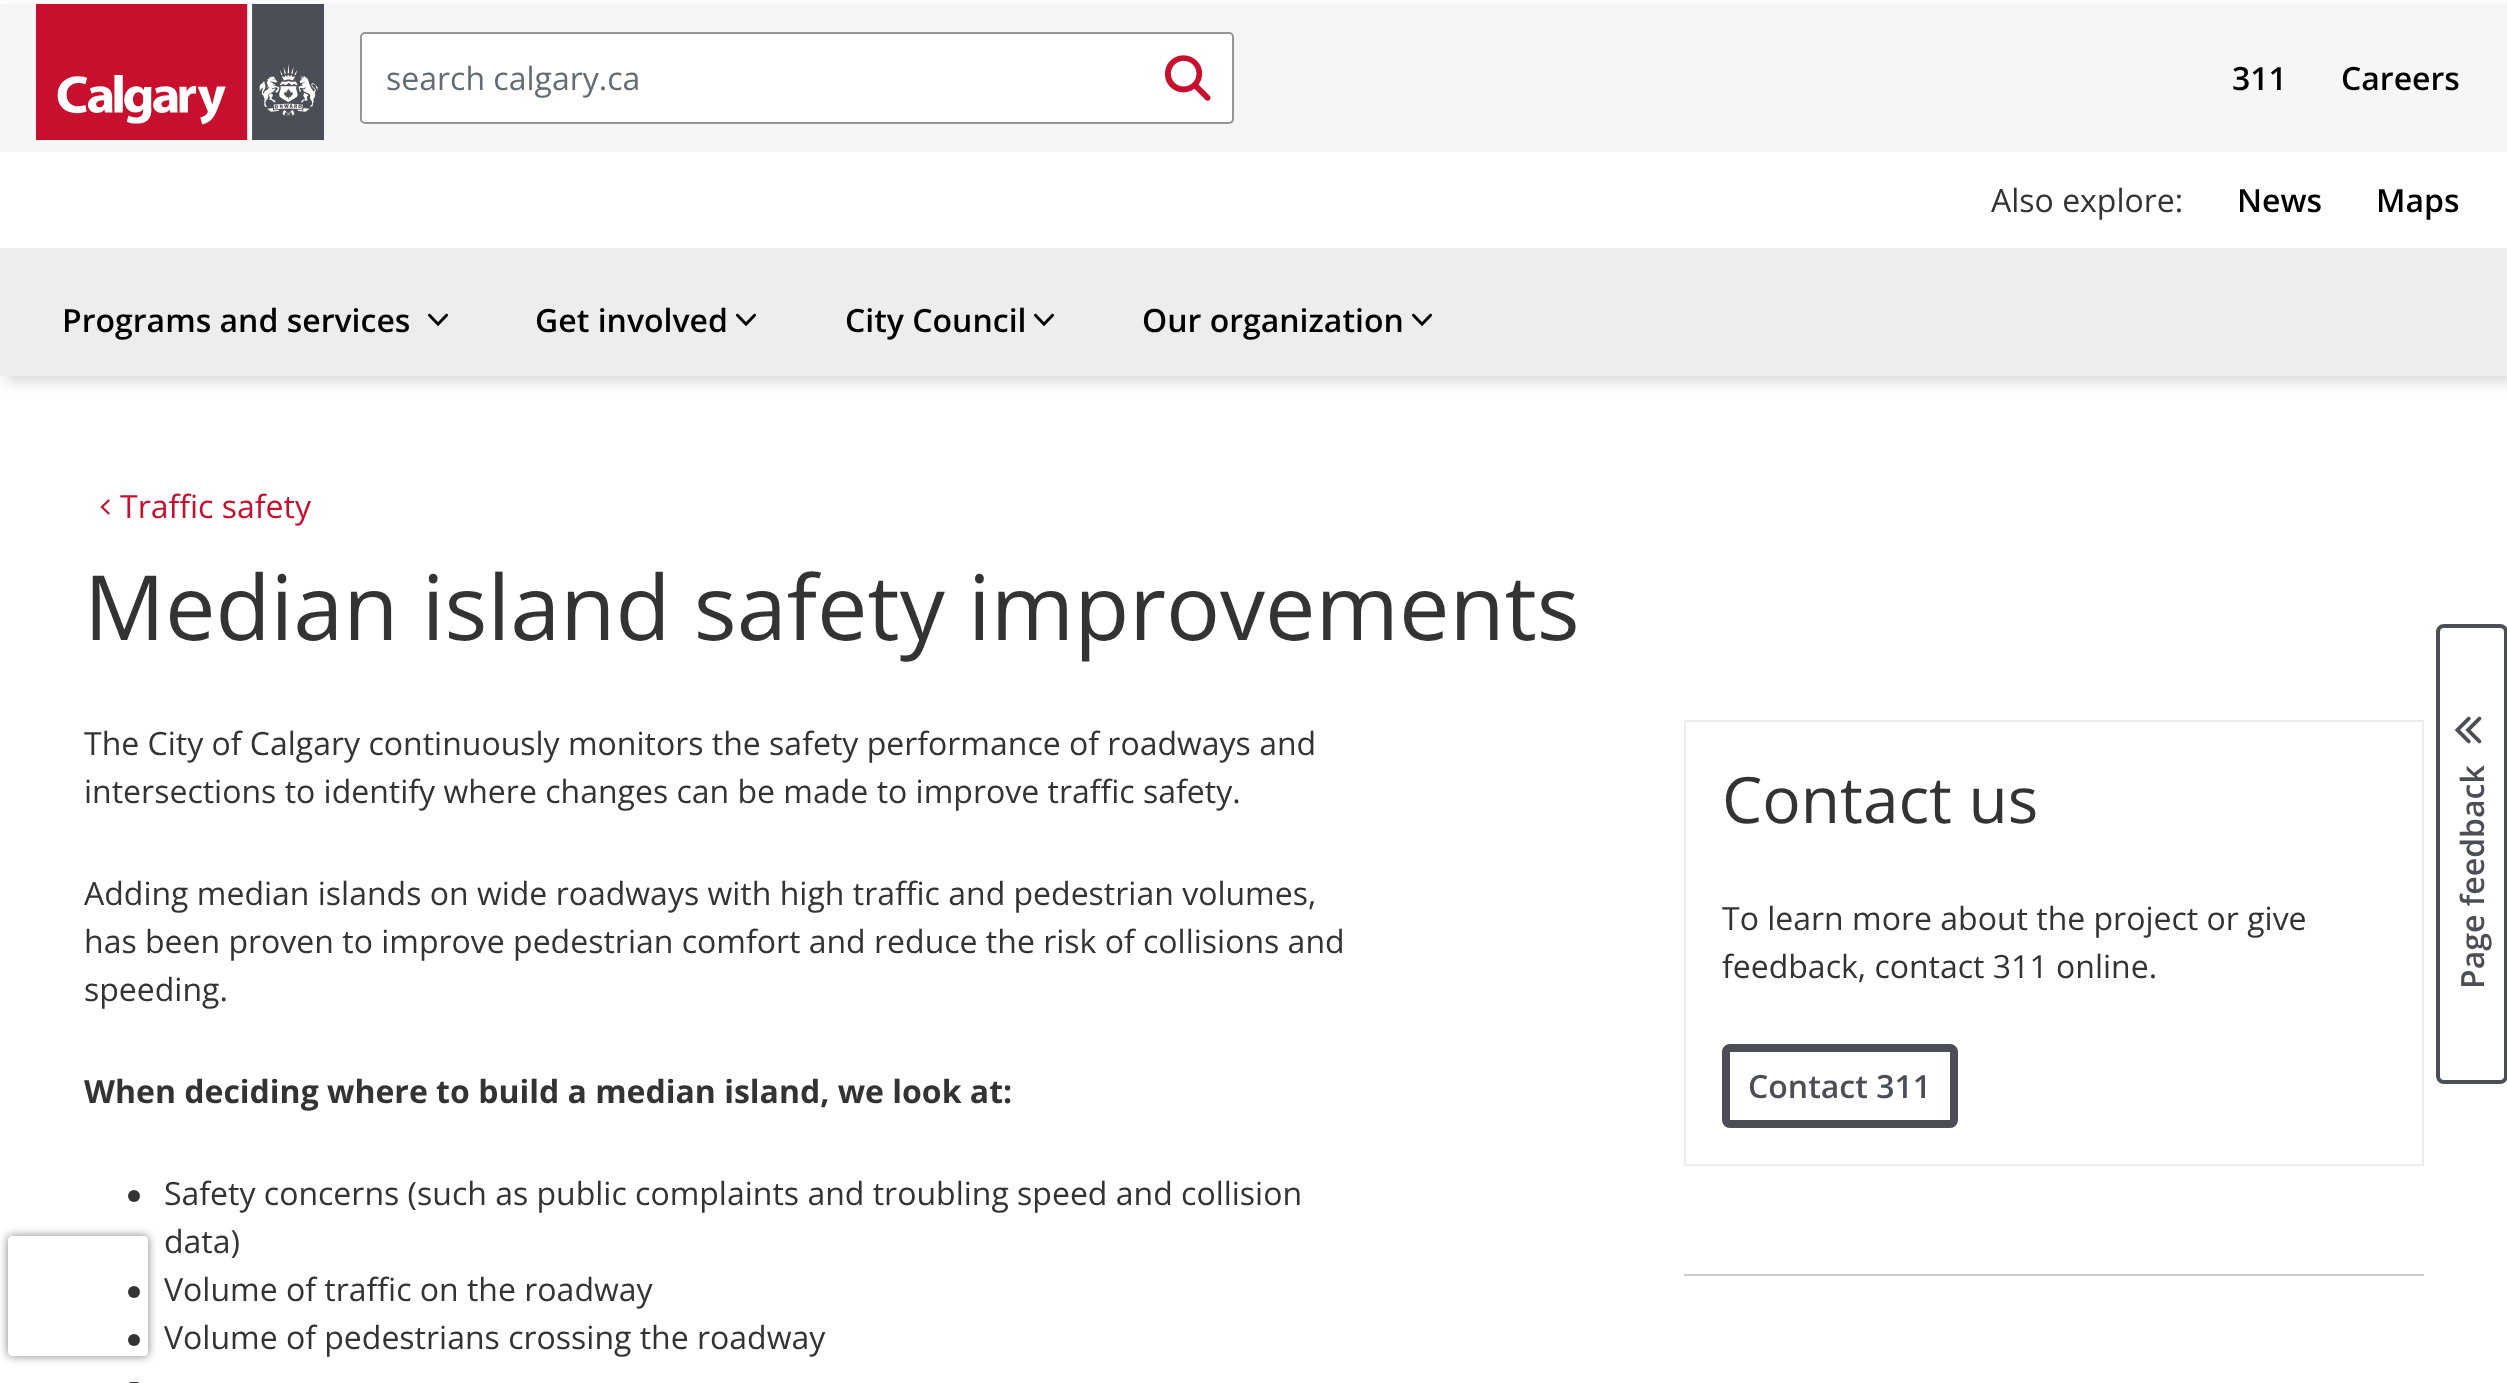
async function draw(canvas) {
  canvas.width = 2507;
  canvas.height = 1383;
  const ctx = canvas.getContext('2d');
  ctx.miterLimit = 4;
  ctx.fontKerning = 'normal';
  function label(s, x, y, font, color) {
    ctx.font = font;
    ctx.fillStyle = color;
    ctx.fillText(s, x, y);
  }
  function rect(x, y, w, h, color) {
    ctx.fillStyle = color;
    ctx.fillRect(x, y, w, h);
  }
  function roundedRect(x, y, w, h, r, color) {
    ctx.fillStyle = color;
    ctx.beginPath();
    ctx.roundRect(x, y, w, h, r);
    ctx.fill();
  }
  async function image(src, x, y, w, h) {
    const img = new Image();
    img.src = src;
    await img.decode();
    ctx.drawImage(img, x, y, w, h);
  }
  let path;

  rect(0, 0, 2507, 1383, '#fff');
  ctx.save();
  path = new Path2D('M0 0H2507V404H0ZM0 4H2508V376H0Z');
  ctx.clip(path, 'evenodd');
  ctx.fillStyle = '#00000026';
  ctx.filter = 'blur(7px)';
  ctx.beginPath();
  ctx.rect(6, 10, 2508, 372);
  ctx.fill();
  ctx.filter = 'none';
  ctx.restore();
  rect(0, 4, 2507, 148, '#f6f6f6');
  await image('assets/img1.png', 36, 4, 288, 136);
  ctx.fillStyle = '#fff';
  ctx.beginPath();
  ctx.roundRect(361, 33, 872, 90, 4);
  ctx.fill();
  ctx.strokeStyle = '#939599';
  ctx.lineWidth = 2;
  ctx.stroke();
  label('search calgary.ca', 386, 90, '32px Open Sans', '#636c72');
  await image('assets/img2.png', 1164, 55, 47, 46);
  label('311', 2232, 90, '600 32px Open Sans', '#000');
  label('Careers', 2341, 90, '600 32px Open Sans', '#000');
  label('Also explore:', 1991, 212, '32px Open Sans', '#333');
  label('News', 2237, 212, '600 32px Open Sans', '#000');
  label('Maps', 2376, 212, '600 32px Open Sans', '#000');
  rect(0, 248, 2507, 128, '#ededee');
  label('Programs and services', 62, 332, '600 32px Open Sans', '#000');
  await image('assets/img3.png', 428, 313, 20, 14);
  label('Get involved', 535, 332, '600 32px Open Sans', '#000');
  await image('assets/img3.png', 736, 313, 20, 14);
  label('City Council', 845, 332, '600 32px Open Sans', '#000');
  await image('assets/img3.png', 1034, 313, 20, 14);
  label('Our organization', 1142, 332, '600 32px Open Sans', '#000');
  await image('assets/img3.png', 1412, 313, 20, 14);
  await image('assets/img4.png', 100, 499, 10, 16);
  label('Traffic safety', 120, 518, '32px Open Sans', '#c8102e');
  label('Median island safety improvements', 84, 640, '90px Open Sans', '#333');
  label('The City of Calgary continuously monitors the safety performance of roadways and', 84, 755, '32px Open Sans', '#333');
  label('intersections to identify where changes can be made to improve traffic safety.', 84, 803, '32px Open Sans', '#333');
  label('Adding median islands on wide roadways with high traffic and pedestrian volumes,', 84, 905, '32px Open Sans', '#333');
  label('has been proven to improve pedestrian comfort and reduce the risk of collisions and', 84, 953, '32px Open Sans', '#333');
  label('speeding.', 84, 1001, '32px Open Sans', '#333');
  label('When deciding where to build a median island, we look at:', 84, 1103, 'bold 32px Open Sans', '#333');
  ctx.beginPath();
  ctx.arc(134, 1196, 6, 0, 2 * Math.PI);
  ctx.fill();
  label('Safety concerns (such as public complaints and troubling speed and collision', 164, 1205, '32px Open Sans', '#333');
  label('data)', 164, 1253, '32px Open Sans', '#333');
  ctx.beginPath();
  ctx.arc(134, 1292, 6, 0, 2 * Math.PI);
  ctx.fill();
  label('Volume of traffic on the roadway', 164, 1301, '32px Open Sans', '#333');
  ctx.beginPath();
  ctx.arc(134, 1340, 6, 0, 2 * Math.PI);
  ctx.fill();
  label('Volume of pedestrians crossing the roadway', 164, 1349, '32px Open Sans', '#333');
  roundedRect(128, 1382, 12, 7, 6, '#333');
  ctx.strokeStyle = '#ededee';
  ctx.strokeRect(1685, 721, 738, 444);
  label('Contact us', 1722, 823, '64px Open Sans', '#333');
  label('To learn more about the project or give', 1722, 930, '32px Open Sans', '#333');
  label('feedback, contact 311 online.', 1722, 978, '32px Open Sans', '#333');
  ctx.beginPath();
  ctx.roundRect(1726, 1048, 228, 76, 4);
  ctx.strokeStyle = '#4b4f55';
  ctx.lineWidth = 8;
  ctx.stroke();
  label('Contact 311', 1748, 1098, '600 32px Open Sans', '#4b4f55');
  rect(1684, 1274, 740, 2, '#ccc');
  path = new Path2D('M2438 1076V632C2438 628.5 2440.5 626 2444 626H2500C2503.5 626 2506 628.5 2506 632V1076C2506 1079.5 2503.5 1082 2500 1082H2444C2440.5 1082 2438 1079.5 2438 1076Z');
  ctx.lineWidth = 4;
  ctx.stroke(path);
  await image('assets/img5.png', 2454, 716, 28, 28);
  ctx.fillStyle = '#4b4f55';
  ctx.save();
  ctx.translate(2484, 989);
  ctx.rotate(-90 * Math.PI / 180);
  ctx.fillText('Page feedback', 0, 0);
  ctx.restore();
  ctx.save();
  path = new Path2D('M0 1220H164V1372H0ZM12 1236H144C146 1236 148 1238 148 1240V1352C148 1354 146 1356 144 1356H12C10 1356 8 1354 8 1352V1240C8 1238 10 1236 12 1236Z');
  ctx.clip(path, 'evenodd');
  ctx.fillStyle = '#808080';
  ctx.filter = 'blur(5px)';
  ctx.beginPath();
  ctx.roundRect(8, 1236, 140, 120, 4);
  ctx.fill();
  ctx.filter = 'none';
  ctx.restore();
}

draw(document.querySelector('canvas'));
